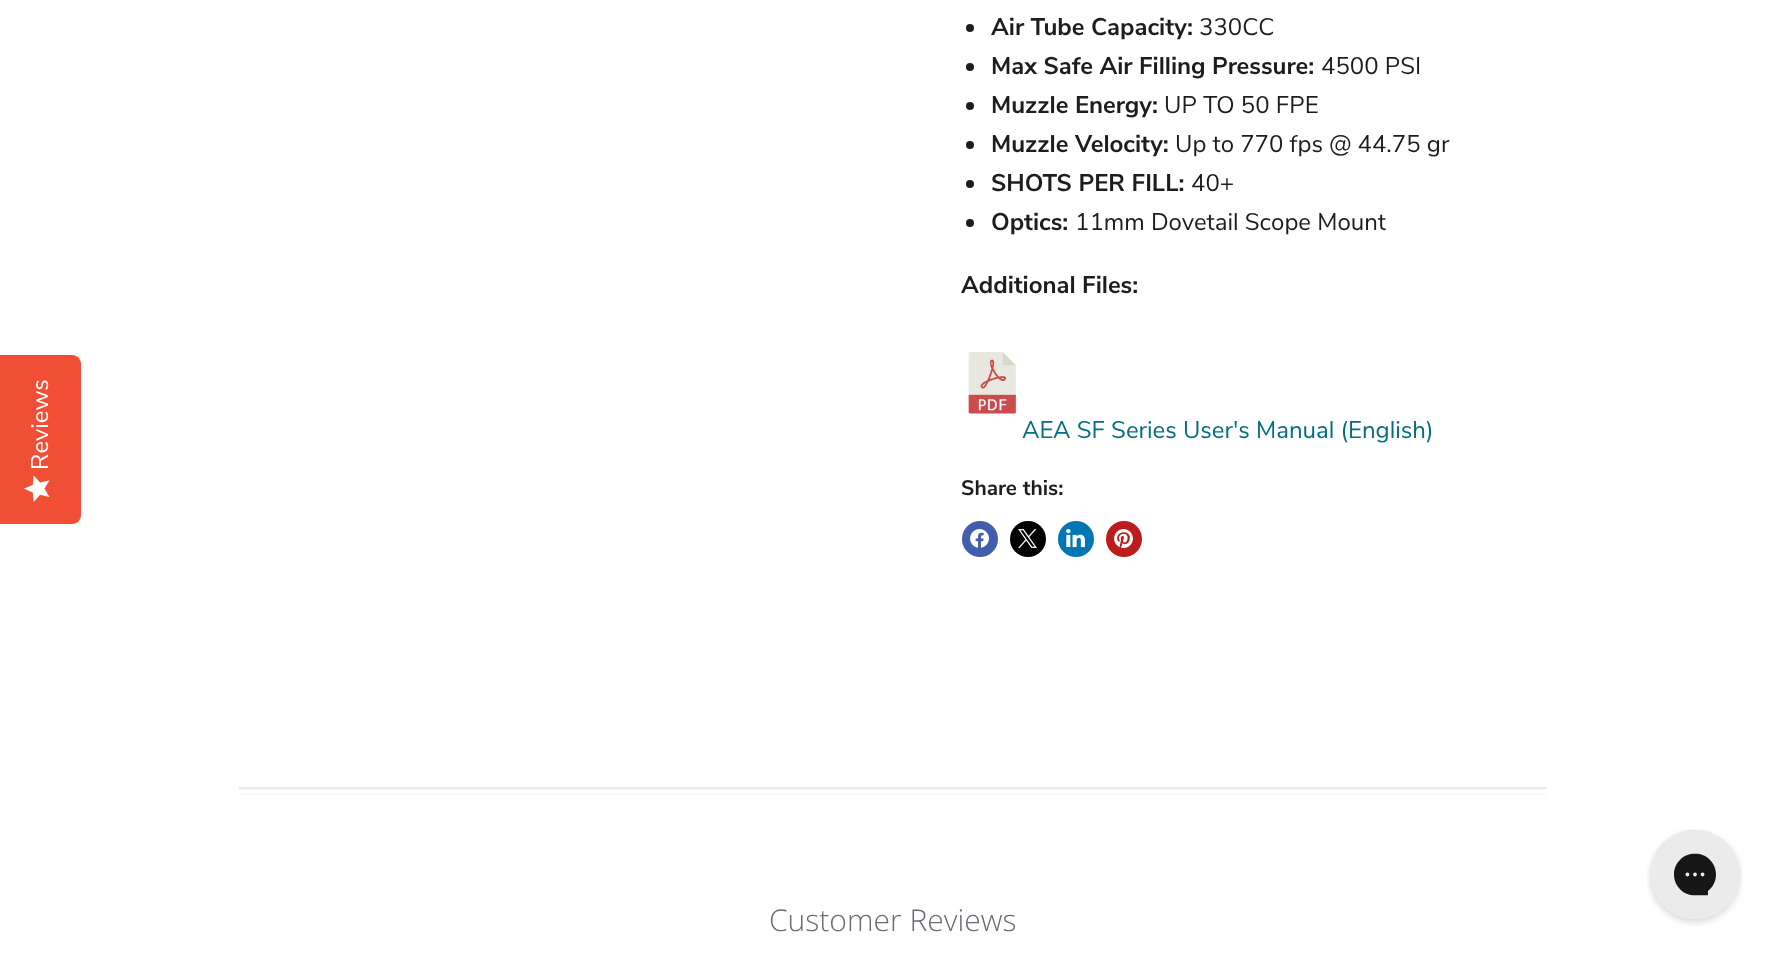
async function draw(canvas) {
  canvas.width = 1785;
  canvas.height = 960;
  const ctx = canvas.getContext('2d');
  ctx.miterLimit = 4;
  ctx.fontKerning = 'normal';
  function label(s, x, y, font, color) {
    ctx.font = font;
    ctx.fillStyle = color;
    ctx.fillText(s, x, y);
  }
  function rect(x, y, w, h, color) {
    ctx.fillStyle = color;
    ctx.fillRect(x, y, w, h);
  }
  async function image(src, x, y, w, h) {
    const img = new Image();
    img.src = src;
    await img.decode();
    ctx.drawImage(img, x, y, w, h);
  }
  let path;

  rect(0, 0, 1785, 960, '#fff');
  ctx.fillStyle = '#f04f36';
  path = new Path2D('M0 524V355H72C77 355 81 359 81 364V515C81 520 77 524 72 524Z');
  ctx.fill(path);
  ctx.font = '24px Nunito Sans';
  ctx.fillStyle = '#fefefe';
  ctx.save();
  ctx.translate(48, 470);
  ctx.rotate(-90 * Math.PI / 180);
  ctx.fillText('Reviews', 0, 0);
  ctx.restore();
  await image('assets/img1.png', 24, 475, 26, 27);
  ctx.fillStyle = '#1d1d1d';
  ctx.beginPath();
  ctx.arc(970, 28, 4, 0, 2 * Math.PI);
  ctx.fill();
  label('Air Tube Capacity:', 991, 35, 'bold 24px Nunito Sans', '#1d1d1d');
  label('330CC', 1199, 35, '24px Nunito Sans', '#1d1d1d');
  ctx.beginPath();
  ctx.arc(970, 67, 4, 0, 2 * Math.PI);
  ctx.fill();
  label('Max Safe Air Filling Pressure:', 991, 74, 'bold 24px Nunito Sans', '#1d1d1d');
  label('4500 PSI', 1321, 74, '24px Nunito Sans', '#1d1d1d');
  ctx.beginPath();
  ctx.arc(970, 106, 4, 0, 2 * Math.PI);
  ctx.fill();
  label('Muzzle Energy:', 991, 113, 'bold 24px Nunito Sans', '#1d1d1d');
  label('UP TO 50 FPE', 1164, 113, '24px Nunito Sans', '#1d1d1d');
  ctx.beginPath();
  ctx.arc(970, 145, 4, 0, 2 * Math.PI);
  ctx.fill();
  label('Muzzle Velocity:', 991, 152, 'bold 24px Nunito Sans', '#1d1d1d');
  label('Up to 770 fps @ 44.75 gr', 1175, 152, '24px Nunito Sans', '#1d1d1d');
  ctx.beginPath();
  ctx.arc(970, 184, 4, 0, 2 * Math.PI);
  ctx.fill();
  label('SHOTS PER FILL:', 991, 191, 'bold 24px Nunito Sans', '#1d1d1d');
  label('40+', 1191, 191, '24px Nunito Sans', '#1d1d1d');
  ctx.beginPath();
  ctx.arc(970, 223, 4, 0, 2 * Math.PI);
  ctx.fill();
  label('Optics:', 991, 230, 'bold 24px Nunito Sans', '#1d1d1d');
  label('11mm Dovetail Scope Mount', 1075, 230, '24px Nunito Sans', '#1d1d1d');
  label('Additional Files:', 961, 293, 'bold 24px Nunito Sans', '#1d1d1d');
  await image('assets/img2.png', 968, 352, 49, 62);
  label('AEA SF Series User\'s Manual (English)', 1022, 438, '24px Nunito Sans', '#046e82');
  label('Share this:', 961, 495, 'bold 21px Nunito Sans', '#1d1d1d');
  ctx.fillStyle = '#425dab';
  ctx.beginPath();
  ctx.arc(980, 539, 18, 0, 2 * Math.PI);
  ctx.fill();
  await image('assets/img3.png', 970, 529, 19, 19);
  ctx.fillStyle = '#000';
  ctx.beginPath();
  ctx.arc(1028, 539, 18, 0, 2 * Math.PI);
  ctx.fill();
  await image('assets/img4.png', 1018, 529, 19, 19);
  ctx.fillStyle = '#0077b5';
  ctx.beginPath();
  ctx.arc(1076, 539, 18, 0, 2 * Math.PI);
  ctx.fill();
  await image('assets/img5.png', 1066, 529, 19, 19);
  ctx.fillStyle = '#bd1c1c';
  ctx.beginPath();
  ctx.arc(1124, 539, 18, 0, 2 * Math.PI);
  ctx.fill();
  await image('assets/img6.png', 1114, 529, 19, 19);
  await image('assets/img7.png', 238, 787, 1309, 8);
  label('Customer Reviews', 769, 931, '300 30px Open Sans', '#6b6d76');
  await image('assets/img8.png', 1647, 829, 96, 97);
}

draw(document.querySelector('canvas'));
